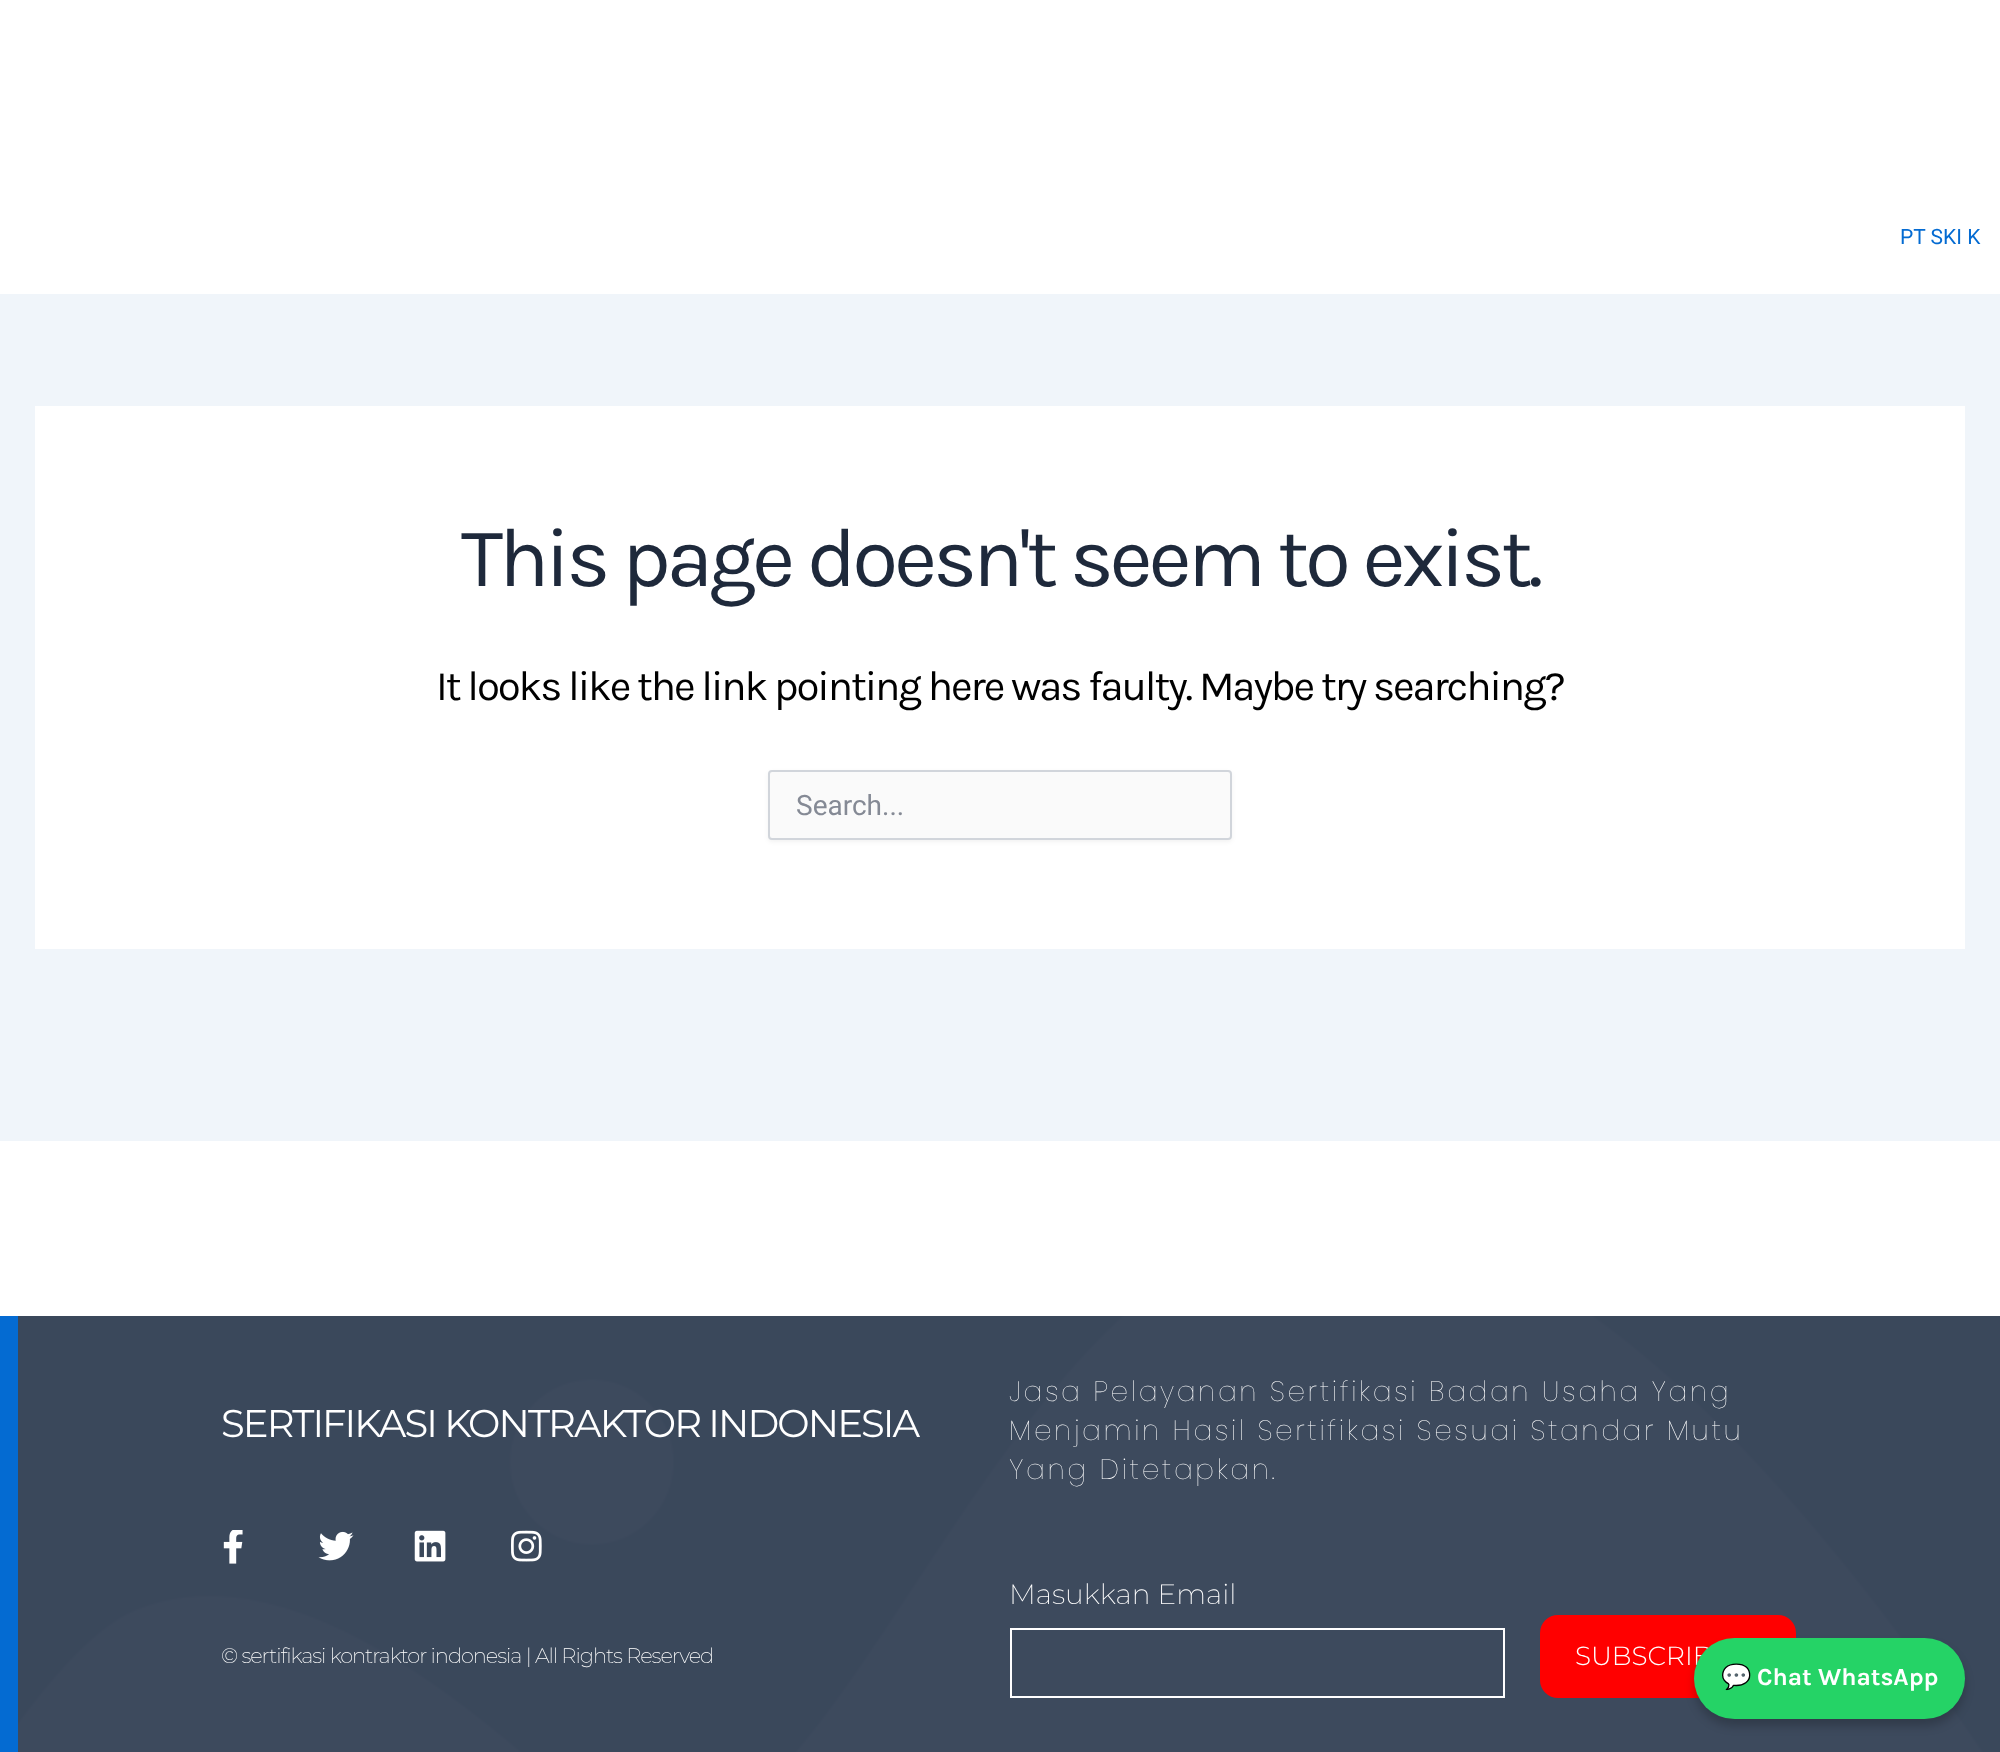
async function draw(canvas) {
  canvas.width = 2000;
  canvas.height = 1752;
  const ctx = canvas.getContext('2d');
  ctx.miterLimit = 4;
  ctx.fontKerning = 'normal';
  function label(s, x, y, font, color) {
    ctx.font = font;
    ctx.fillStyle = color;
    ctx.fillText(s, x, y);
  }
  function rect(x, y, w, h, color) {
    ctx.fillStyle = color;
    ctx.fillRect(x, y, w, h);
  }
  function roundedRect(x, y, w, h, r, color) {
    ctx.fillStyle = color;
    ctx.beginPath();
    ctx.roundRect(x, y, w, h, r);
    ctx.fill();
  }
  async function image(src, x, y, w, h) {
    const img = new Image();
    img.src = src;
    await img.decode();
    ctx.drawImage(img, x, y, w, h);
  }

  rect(0, 0, 2000, 1752, '#f0f5fa');
  rect(0, 0, 2000, 294, '#fff');
  label('PT SKI K', 1900, 244, '21px Roboto', '#046bd2');
  rect(35, 406, 1930, 543, '#fff');
  ctx.letterSpacing = '-4.2px';
  label('This page doesn\'t seem to exist.', 461, 586, '84px Karla', '#1e293b');
  ctx.letterSpacing = '-2.1px';
  label('It looks like the link pointing here was faulty. Maybe try searching?', 436, 700, '42px Karla', '#000');
  ctx.fillStyle = '#0000000d';
  ctx.filter = 'blur(2px)';
  ctx.beginPath();
  ctx.roundRect(768, 772, 464, 70, 4);
  ctx.fill();
  ctx.filter = 'none';
  ctx.fillStyle = '#fafafa';
  ctx.beginPath();
  ctx.roundRect(769, 771, 462, 68, 3);
  ctx.fill();
  ctx.strokeStyle = '#d1d5db';
  ctx.lineWidth = 2;
  ctx.stroke();
  ctx.letterSpacing = '0px';
  label('Search...', 796, 815, '28px Roboto', '#858a95');
  rect(0, 1141, 2000, 175, '#fff');
  rect(18, 1316, 1982, 436, '#334155');
  rect(0, 1316, 18, 436, '#046bd2');
  await image('assets/img1.png', 18, 1316, 1982, 436);
  ctx.letterSpacing = '-1.9px';
  label('SERTIFIKASI KONTRAKTOR INDONESIA', 221, 1437, '38.5px Montserrat', '#fff');
  await image('assets/img2.png', 223, 1530, 20, 34);
  await image('assets/img3.png', 318, 1531, 36, 30);
  await image('assets/img4.png', 414, 1530, 32, 32);
  await image('assets/img5.png', 511, 1530, 31, 32);
  ctx.letterSpacing = '-1.05px';
  label('© sertifikasi kontraktor indonesia | All Rights Reserved', 221, 1663, '200 21px Montserrat', '#fff');
  ctx.letterSpacing = '2.6px';
  label('Jasa Pelayanan Sertifikasi Badan Usaha Yang', 1009, 1401, '200 28px Poppins', '#fff');
  label('Menjamin Hasil Sertifikasi Sesuai Standar Mutu', 1009, 1440, '200 28px Poppins', '#fff');
  label('Yang Ditetapkan.', 1009, 1479, '200 28px Poppins', '#fff');
  ctx.letterSpacing = '0px';
  label('Masukkan Email', 1009, 1604, '200 28px Montserrat', '#fff');
  ctx.strokeStyle = '#fff';
  ctx.strokeRect(1011, 1629, 493, 68);
  roundedRect(1540, 1615, 256, 83, 18, '#f00');
  label('SUBSCRIB', 1575, 1665, '300 26.25px Montserrat', '#fff');
  ctx.fillStyle = '#00000033';
  ctx.filter = 'blur(5px)';
  ctx.beginPath();
  ctx.roundRect(1694, 1645, 271, 81, 40.5);
  ctx.fill();
  ctx.filter = 'none';
  roundedRect(1694, 1638, 271, 81, 40.5, '#25d366');
  label('💬', 1721, 1685, 'bold 24.5px Noto Color Emoji', '#fff');
  label('Chat WhatsApp', 1757, 1685, 'bold 24.5px Karla', '#fff');
}

draw(document.querySelector('canvas'));
